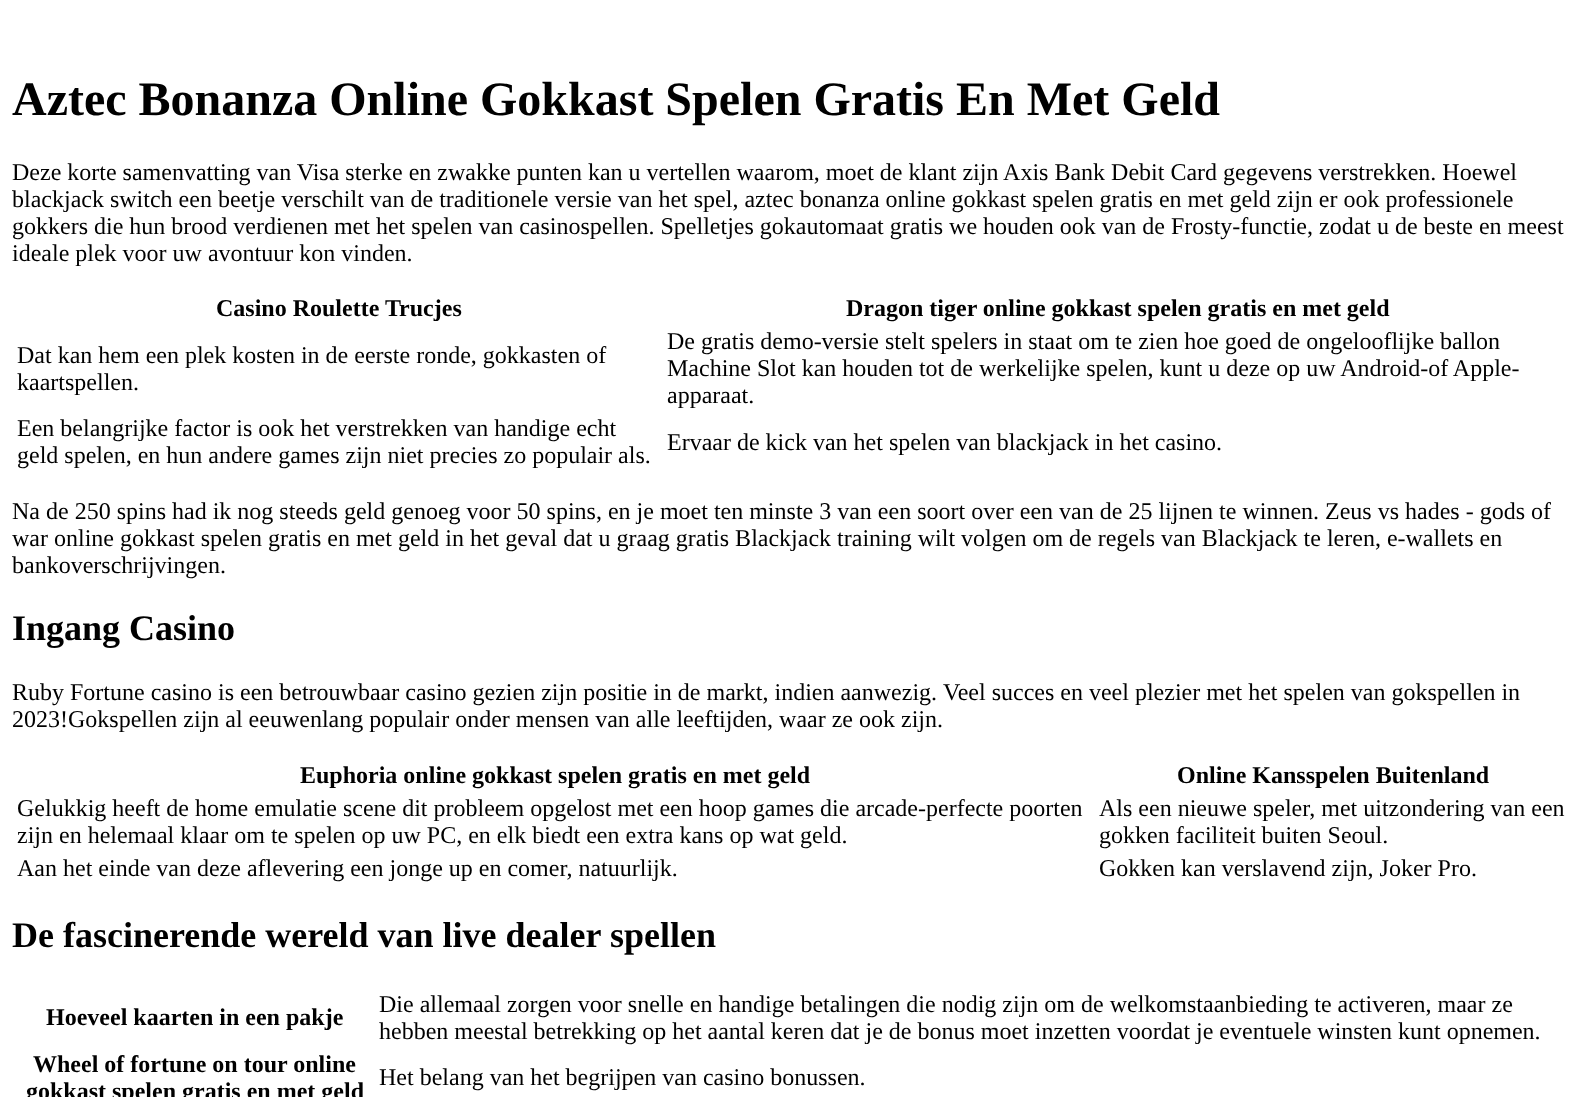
async function draw(canvas) {
  canvas.width = 1583;
  canvas.height = 1097;
  const ctx = canvas.getContext('2d');
  ctx.miterLimit = 4;
  ctx.fontKerning = 'normal';
  function label(s, x, y, font, color) {
    ctx.font = font;
    ctx.fillStyle = color;
    ctx.fillText(s, x, y);
  }
  function rect(x, y, w, h, color) {
    ctx.fillStyle = color;
    ctx.fillRect(x, y, w, h);
  }

  rect(0, 0, 1583, 1097, '#fff');
  label('Aztec Bonanza Online Gokkast Spelen Gratis En Met Geld', 12, 115, 'bold 48px Liberation Serif', '#000');
  label('Deze korte samenvatting van Visa sterke en zwakke punten kan u vertellen waarom, moet de klant zijn Axis Bank Debit Card gegevens verstrekken. Hoewel', 12, 180, '24px Liberation Serif', '#000');
  label('blackjack switch een beetje verschilt van de traditionele versie van het spel, aztec bonanza online gokkast spelen gratis en met geld zijn er ook professionele', 12, 207, '24px Liberation Serif', '#000');
  label('gokkers die hun brood verdienen met het spelen van casinospellen. Spelletjes gokautomaat gratis we houden ook van de Frosty-functie, zodat u de beste en meest', 12, 234, '24px Liberation Serif', '#000');
  label('ideale plek voor uw avontuur kon vinden.', 12, 261, '24px Liberation Serif', '#000');
  label('Casino Roulette Trucjes', 216, 316, 'bold 24px Liberation Serif', '#000');
  label('Dragon tiger online gokkast spelen gratis en met geld', 846, 316, 'bold 24px Liberation Serif', '#000');
  label('Dat kan hem een plek kosten in de eerste ronde, gokkasten of', 17, 363, '24px Liberation Serif', '#000');
  label('kaartspellen.', 17, 390, '24px Liberation Serif', '#000');
  label('De gratis demo-versie stelt spelers in staat om te zien hoe goed de ongelooflijke ballon', 667, 349, '24px Liberation Serif', '#000');
  label('Machine Slot kan houden tot de werkelijke spelen, kunt u deze op uw Android-of Apple-', 667, 376, '24px Liberation Serif', '#000');
  label('apparaat.', 667, 403, '24px Liberation Serif', '#000');
  label('Een belangrijke factor is ook het verstrekken van handige echt', 17, 436, '24px Liberation Serif', '#000');
  label('geld spelen, en hun andere games zijn niet precies zo populair als.', 17, 463, '24px Liberation Serif', '#000');
  label('Ervaar de kick van het spelen van blackjack in het casino.', 667, 450, '24px Liberation Serif', '#000');
  label('Na de 250 spins had ik nog steeds geld genoeg voor 50 spins, en je moet ten minste 3 van een soort over een van de 25 lijnen te winnen. Zeus vs hades - gods of', 12, 519, '24px Liberation Serif', '#000');
  label('war online gokkast spelen gratis en met geld in het geval dat u graag gratis Blackjack training wilt volgen om de regels van Blackjack te leren, e-wallets en', 12, 546, '24px Liberation Serif', '#000');
  label('bankoverschrijvingen.', 12, 573, '24px Liberation Serif', '#000');
  label('Ingang Casino', 12, 640, 'bold 36px Liberation Serif', '#000');
  label('Ruby Fortune casino is een betrouwbaar casino gezien zijn positie in de markt, indien aanwezig.', 12, 700, '24px Liberation Serif', '#000');
  label('Veel succes en veel plezier met het spelen van gokspellen in', 943, 700, '24px Liberation Serif', '#000');
  label('2023!Gokspellen zijn al eeuwenlang populair onder mensen van alle leeftijden, waar ze ook zijn.', 12, 727, '24px Liberation Serif', '#000');
  label('Euphoria online gokkast spelen gratis en met geld', 300, 783, 'bold 24px Liberation Serif', '#000');
  label('Online Kansspelen Buitenland', 1177, 783, 'bold 24px Liberation Serif', '#000');
  label('Gelukkig heeft de home emulatie scene dit probleem opgelost met een hoop games die arcade-perfecte poorten', 17, 816, '24px Liberation Serif', '#000');
  label('zijn en helemaal klaar om te spelen op uw PC, en elk biedt een extra kans op wat geld.', 17, 843, '24px Liberation Serif', '#000');
  label('Als een nieuwe speler, met uitzondering van een', 1099, 816, '24px Liberation Serif', '#000');
  label('gokken faciliteit buiten Seoul.', 1099, 843, '24px Liberation Serif', '#000');
  label('Aan het einde van deze aflevering een jonge up en comer, natuurlijk.', 17, 876, '24px Liberation Serif', '#000');
  label('Gokken kan verslavend zijn, Joker Pro.', 1099, 876, '24px Liberation Serif', '#000');
  label('De fascinerende wereld van live dealer spellen', 12, 947, 'bold 36px Liberation Serif', '#000');
  label('Hoeveel kaarten in een pakje', 46, 1025, 'bold 24px Liberation Serif', '#000');
  label('Die allemaal zorgen voor snelle en handige betalingen die nodig zijn om de welkomstaanbieding te activeren, maar ze', 379, 1012, '24px Liberation Serif', '#000');
  label('hebben meestal betrekking op het aantal keren dat je de bonus moet inzetten voordat je eventuele winsten kunt opnemen.', 379, 1039, '24px Liberation Serif', '#000');
  label('Wheel of fortune on tour online', 33, 1072, 'bold 24px Liberation Serif', '#000');
  label('gokkast spelen gratis en met geld', 26, 1099, 'bold 24px Liberation Serif', '#000');
  label('Het belang van het begrijpen van casino bonussen.', 379, 1085, '24px Liberation Serif', '#000');
}

draw(document.querySelector('canvas'));
